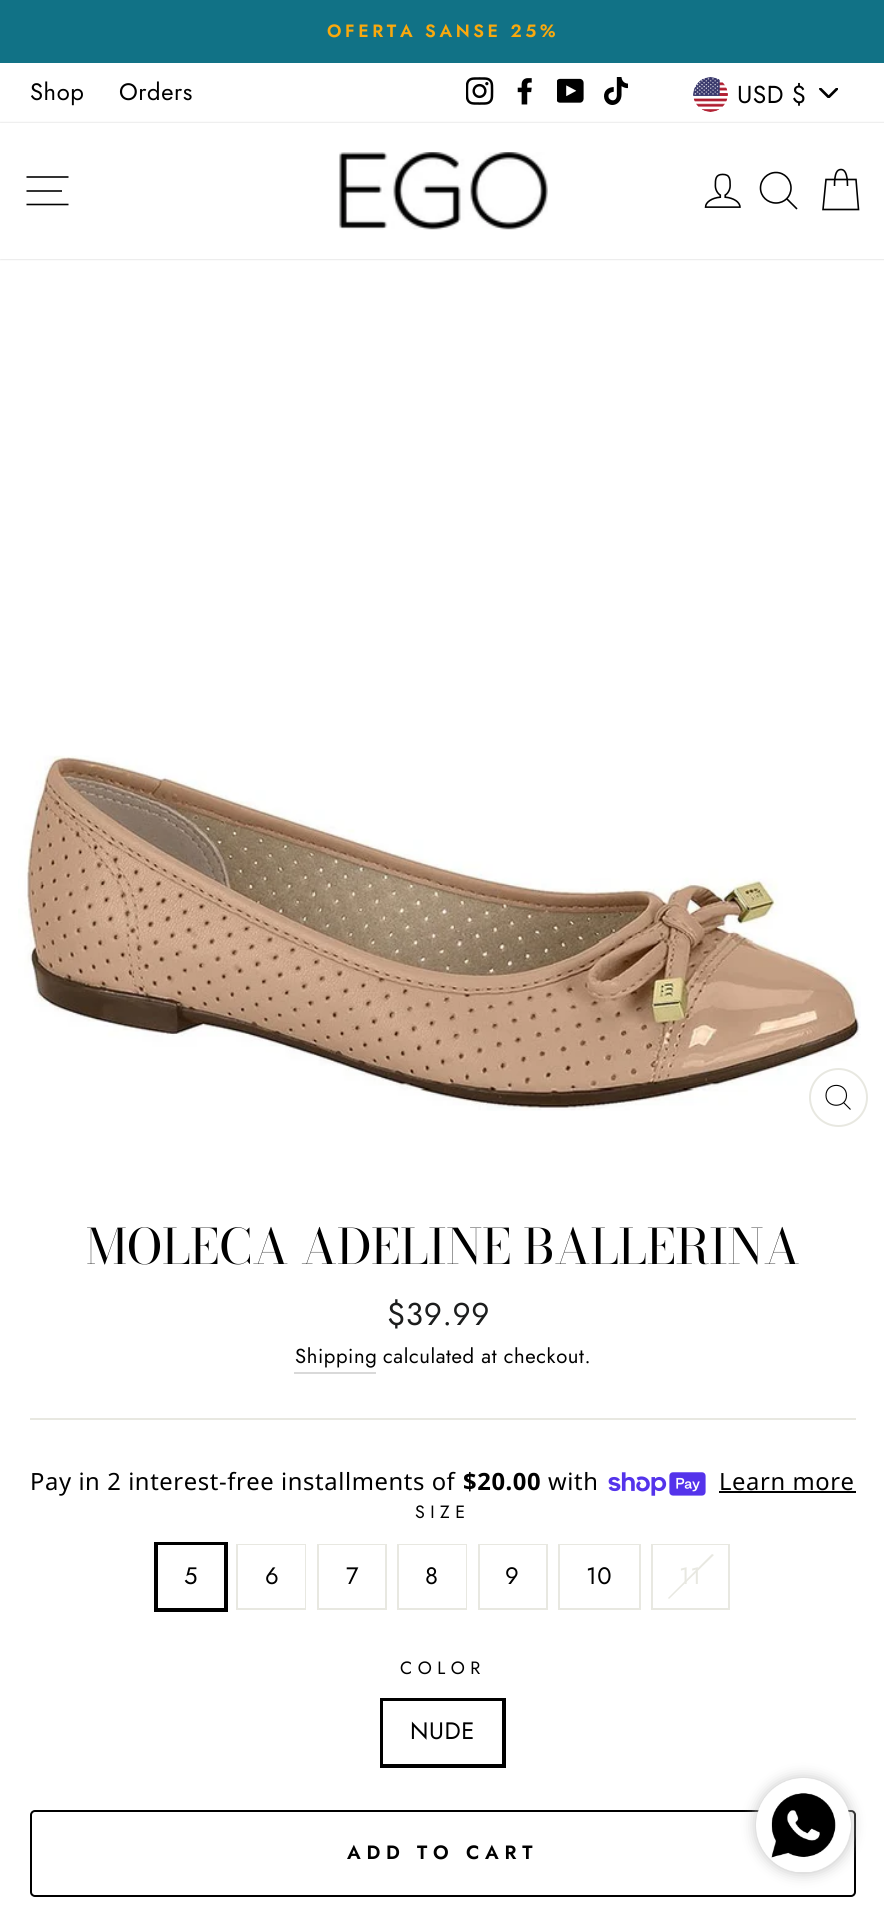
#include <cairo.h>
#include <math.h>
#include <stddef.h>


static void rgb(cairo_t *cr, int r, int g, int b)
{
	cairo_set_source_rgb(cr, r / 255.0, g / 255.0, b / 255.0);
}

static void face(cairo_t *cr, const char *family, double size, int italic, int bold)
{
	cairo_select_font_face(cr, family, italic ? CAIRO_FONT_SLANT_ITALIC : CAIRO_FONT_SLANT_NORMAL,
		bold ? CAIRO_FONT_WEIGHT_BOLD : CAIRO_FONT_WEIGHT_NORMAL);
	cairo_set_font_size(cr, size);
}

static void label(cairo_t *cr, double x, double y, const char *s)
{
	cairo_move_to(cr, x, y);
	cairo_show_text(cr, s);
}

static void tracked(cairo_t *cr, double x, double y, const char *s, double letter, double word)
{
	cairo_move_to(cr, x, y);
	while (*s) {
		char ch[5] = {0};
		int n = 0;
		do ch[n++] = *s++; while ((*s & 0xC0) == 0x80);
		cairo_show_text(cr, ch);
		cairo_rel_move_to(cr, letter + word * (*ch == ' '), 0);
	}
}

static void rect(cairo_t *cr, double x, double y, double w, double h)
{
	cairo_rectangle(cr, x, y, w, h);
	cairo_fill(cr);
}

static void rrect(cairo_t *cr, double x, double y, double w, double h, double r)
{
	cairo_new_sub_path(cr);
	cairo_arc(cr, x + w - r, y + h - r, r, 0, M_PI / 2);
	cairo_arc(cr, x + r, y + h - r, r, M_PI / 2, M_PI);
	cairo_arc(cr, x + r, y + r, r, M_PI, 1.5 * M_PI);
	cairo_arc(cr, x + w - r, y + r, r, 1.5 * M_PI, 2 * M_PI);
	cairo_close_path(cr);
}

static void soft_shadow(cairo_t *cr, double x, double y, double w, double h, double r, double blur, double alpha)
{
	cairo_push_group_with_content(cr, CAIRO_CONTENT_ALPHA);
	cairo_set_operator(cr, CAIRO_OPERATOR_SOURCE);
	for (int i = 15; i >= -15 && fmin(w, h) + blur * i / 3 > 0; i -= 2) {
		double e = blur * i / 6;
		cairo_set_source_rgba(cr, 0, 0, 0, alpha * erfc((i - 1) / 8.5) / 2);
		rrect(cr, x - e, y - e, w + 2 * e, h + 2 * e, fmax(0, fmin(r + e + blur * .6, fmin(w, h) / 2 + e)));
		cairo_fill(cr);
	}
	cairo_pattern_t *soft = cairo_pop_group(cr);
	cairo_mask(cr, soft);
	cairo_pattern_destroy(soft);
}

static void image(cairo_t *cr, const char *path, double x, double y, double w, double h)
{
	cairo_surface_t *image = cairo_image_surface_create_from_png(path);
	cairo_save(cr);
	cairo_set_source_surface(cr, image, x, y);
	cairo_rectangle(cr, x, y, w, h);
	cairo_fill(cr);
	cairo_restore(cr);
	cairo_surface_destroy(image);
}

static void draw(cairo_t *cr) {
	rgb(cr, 255, 255, 255);
	cairo_paint(cr);
	rgb(cr, 17, 114, 134);
	rect(cr, 0, 0, 884, 63);
	face(cr, "Jost SemiBold", 17.8, 0, 0);
	rgb(cr, 250, 169, 13);
	tracked(cr, 327, 37, "OFERTA SANSE 25%", 3.6, 0);
	face(cr, "Jost", 23.75, 0, 0);
	rgb(cr, 0, 0, 0);
	tracked(cr, 30, 100, "Shop", 0.6, 0);
	tracked(cr, 119, 100, "Orders", 0.6, 0);
	image(cr, "image0.png", 466, 77, 28, 28);
	image(cr, "image1.png", 517, 78, 15, 27);
	image(cr, "image2.png", 557, 78, 27, 25);
	image(cr, "image3.png", 604, 77, 24, 28);
	image(cr, "image4.png", 819, 88, 19, 10);
	image(cr, "image5.png", 693, 77, 35, 35);
	face(cr, "Jost", 24.5, 0, 0);
	tracked(cr, 737, 103, "USD $", 0.5, 0);
	cairo_save(cr);
	cairo_set_fill_rule(cr, CAIRO_FILL_RULE_EVEN_ODD);
	cairo_new_path(cr);
	cairo_move_to(cr, 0, 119);
	cairo_line_to(cr, 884, 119);
	cairo_line_to(cr, 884, 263);
	cairo_line_to(cr, 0, 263);
	cairo_close_path(cr);
	cairo_move_to(cr, 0, 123);
	cairo_line_to(cr, 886, 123);
	cairo_line_to(cr, 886, 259);
	cairo_line_to(cr, 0, 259);
	cairo_close_path(cr);
	cairo_clip(cr);
	rgb(cr, 0, 0, 0);
	soft_shadow(cr, 0, 123, 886, 136, 0, 1, 0.2);
	cairo_restore(cr);
	cairo_new_path(cr);
	cairo_move_to(cr, 26.5, 177);
	cairo_line_to(cr, 68.5, 177);
	cairo_move_to(cr, 26.5, 191);
	cairo_line_to(cr, 62, 191);
	cairo_move_to(cr, 26.5, 204.5);
	cairo_line_to(cr, 68.5, 204.5);
	cairo_set_line_width(cr, 1.6);
	cairo_stroke(cr);
	image(cr, "image6.png", 339, 152, 209, 78);
	image(cr, "image7.png", 704, 173, 37, 35);
	cairo_new_path(cr);
	cairo_move_to(cr, 791, 188);
	cairo_curve_to(cr, 791, 196.5, 784.5, 203, 776, 203);
	cairo_curve_to(cr, 767.5, 203, 760.5, 196.5, 760.5, 188);
	cairo_curve_to(cr, 760.5, 179.5, 767.5, 172.5, 776, 172.5);
	cairo_curve_to(cr, 784.5, 172.5, 791, 179.5, 791, 188);
	cairo_close_path(cr);
	cairo_move_to(cr, 797, 209);
	cairo_line_to(cr, 787, 199);
	cairo_stroke(cr);
	cairo_new_path(cr);
	cairo_move_to(cr, 834.5, 186);
	cairo_curve_to(cr, 834.5, 173, 837, 169.5, 841, 169.5);
	cairo_curve_to(cr, 844.5, 169.5, 847.5, 173, 847.5, 186);
	cairo_move_to(cr, 826, 179.5);
	cairo_line_to(cr, 856, 179.5);
	cairo_line_to(cr, 858.5, 209.5);
	cairo_line_to(cr, 823, 209.5);
	cairo_close_path(cr);
	cairo_stroke(cr);
	image(cr, "image8.png", 18, 755, 843, 356);
	cairo_arc(cr, 838.5, 1097.5, 28.5, 0, 2 * M_PI);
	rgb(cr, 232, 232, 225);
	cairo_set_line_width(cr, 2);
	cairo_stroke(cr);
	cairo_new_path(cr);
	cairo_move_to(cr, 846.5, 1095.5);
	cairo_curve_to(cr, 846.5, 1108.5, 826, 1108.5, 826, 1095.5);
	cairo_curve_to(cr, 826, 1082, 846.5, 1082, 846.5, 1095.5);
	cairo_close_path(cr);
	cairo_move_to(cr, 850.5, 1109.5);
	cairo_line_to(cr, 843.5, 1102.5);
	rgb(cr, 0, 0, 0);
	cairo_set_line_width(cr, 1.1);
	cairo_stroke(cr);
	face(cr, "Bodoni Moda", 48.5, 0, 0);
	label(cr, 86, 1264, "MOLECA ADELINE BALLERINA");
	face(cr, "Jost", 31.5, 0, 0);
	rgb(cr, 28, 29, 29);
	tracked(cr, 387, 1325, "$39.99", 0.6, 0);
	rgb(cr, 217, 217, 217);
	rect(cr, 294, 1372, 82, 2);
	face(cr, "Jost", 20.25, 0, 0);
	rgb(cr, 0, 0, 0);
	tracked(cr, 295, 1363, "Shipping", 0.6, 0);
	tracked(cr, 383, 1363, "calculated at checkout.", 0.6, 0);
	rgb(cr, 232, 232, 225);
	rect(cr, 30, 1418, 826, 2);
	face(cr, "Noto Sans", 23.75, 0, 0);
	rgb(cr, 0, 0, 0);
	tracked(cr, 30, 1490, "Pay in 2 interest-free installments of", 0.6, 0);
	face(cr, "Noto Sans", 23.75, 0, 1);
	tracked(cr, 463, 1490, "$20.00", 0.6, 0);
	face(cr, "Noto Sans", 23.75, 0, 0);
	tracked(cr, 548, 1490, "with", 0.6, 0);
	image(cr, "image9.png", 608, 1472, 98, 24);
	tracked(cr, 719, 1490, "Learn more", 0.6, 0);
	rect(cr, 719, 1491, 137, 2);
	face(cr, "Jost", 17.8, 0, 0);
	tracked(cr, 415, 1518, "SIZE", 5.5, 0);
	cairo_rectangle(cr, 156, 1544, 70, 66);
	cairo_set_line_width(cr, 4);
	cairo_stroke(cr);
	rgb(cr, 255, 255, 255);
	rect(cr, 158, 1545, 66, 1);
	face(cr, "Jost", 23.75, 0, 0);
	rgb(cr, 0, 0, 0);
	tracked(cr, 184, 1584, "5", 0.6, 0);
	cairo_rectangle(cr, 237, 1545, 68, 64);
	rgb(cr, 232, 232, 225);
	cairo_set_line_width(cr, 2);
	cairo_stroke(cr);
	rgb(cr, 255, 255, 255);
	rect(cr, 238, 1545, 67, 63);
	rgb(cr, 0, 0, 0);
	tracked(cr, 265, 1584, "6", 0.6, 0);
	cairo_rectangle(cr, 318, 1545, 68, 64);
	rgb(cr, 232, 232, 225);
	cairo_stroke(cr);
	rgb(cr, 255, 255, 255);
	rect(cr, 319, 1545, 66, 1);
	rgb(cr, 0, 0, 0);
	tracked(cr, 346, 1584, "7", 0.6, 0);
	cairo_rectangle(cr, 398, 1545, 68, 64);
	rgb(cr, 232, 232, 225);
	cairo_stroke(cr);
	rgb(cr, 255, 255, 255);
	rect(cr, 399, 1545, 67, 63);
	rgb(cr, 0, 0, 0);
	tracked(cr, 425, 1584, "8", 0.6, 0);
	cairo_rectangle(cr, 479, 1545, 68, 64);
	rgb(cr, 232, 232, 225);
	cairo_stroke(cr);
	rgb(cr, 255, 255, 255);
	rect(cr, 480, 1545, 66, 1);
	rgb(cr, 0, 0, 0);
	tracked(cr, 505, 1584, "9", 0.6, 0);
	cairo_rectangle(cr, 559, 1545, 81, 64);
	rgb(cr, 232, 232, 225);
	cairo_stroke(cr);
	rgb(cr, 255, 255, 255);
	rect(cr, 560, 1545, 79, 1);
	rgb(cr, 0, 0, 0);
	tracked(cr, 586, 1584, "10", 0.6, 0);
	cairo_rectangle(cr, 652, 1545, 77, 64);
	rgb(cr, 232, 232, 225);
	cairo_stroke(cr);
	rgb(cr, 255, 255, 255);
	rect(cr, 653, 1545, 75, 1);
	rgb(cr, 232, 232, 225);
	cairo_new_path(cr);
	cairo_move_to(cr, 712, 1554);
	cairo_line_to(cr, 714, 1555);
	cairo_line_to(cr, 669, 1599);
	cairo_line_to(cr, 668, 1598);
	cairo_close_path(cr);
	cairo_fill(cr);
	tracked(cr, 679, 1584, "11", 0.6, 0);
	face(cr, "Jost", 17.8, 0, 0);
	rgb(cr, 0, 0, 0);
	tracked(cr, 400, 1674, "COLOR", 5.5, 0);
	cairo_rectangle(cr, 382, 1700, 122, 66);
	cairo_set_line_width(cr, 4);
	cairo_stroke(cr);
	rgb(cr, 255, 255, 255);
	rect(cr, 383, 1701, 119, 63);
	face(cr, "Jost", 23.75, 0, 0);
	rgb(cr, 0, 0, 0);
	tracked(cr, 410, 1739, "NUDE", 0.6, 0);
	rrect(cr, 31, 1811, 824, 85, 4);
	cairo_set_line_width(cr, 2);
	cairo_stroke(cr);
	face(cr, "Jost SemiBold", 19.25, 0, 0);
	tracked(cr, 347, 1859, "ADD TO CART", 5.75, 0);
	rgb(cr, 194, 194, 194);
	soft_shadow(cr, 756, 1778, 95, 95, 47.5, 7, 1);
	image(cr, "image10.png", 756, 1778, 95, 94);
}

int main(void) {
	cairo_surface_t *surface = cairo_image_surface_create(CAIRO_FORMAT_RGB24, 884, 1906);
	cairo_t *cr = cairo_create(surface);
	cairo_font_options_t *options = cairo_font_options_create();
	cairo_font_options_set_hint_metrics(options, CAIRO_HINT_METRICS_OFF);
	cairo_font_options_set_hint_style(options, CAIRO_HINT_STYLE_NONE);
	cairo_set_font_options(cr, options);
	cairo_set_miter_limit(cr, 4);
	draw(cr);
	cairo_surface_write_to_png(surface, "render.png");
	cairo_font_options_destroy(options);
	cairo_destroy(cr);
	cairo_surface_destroy(surface);
	return 0;
}
